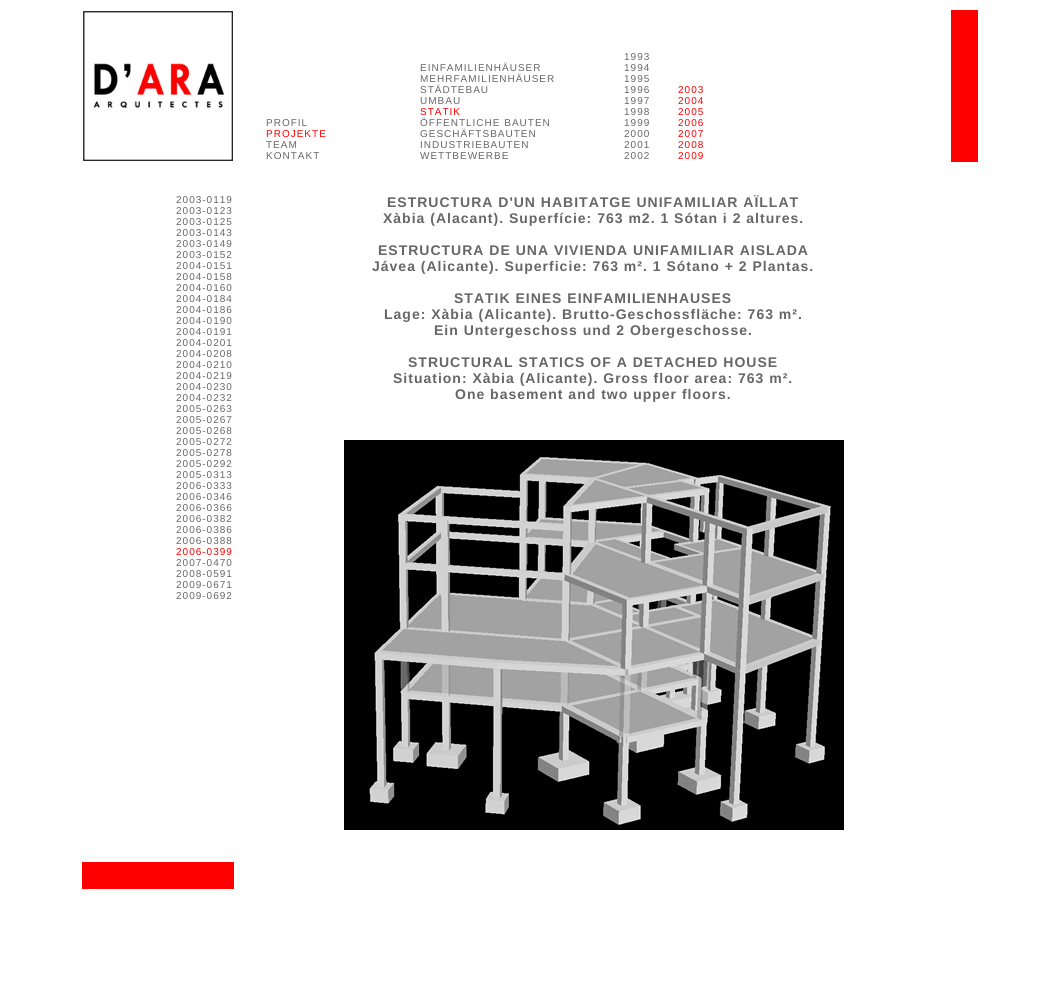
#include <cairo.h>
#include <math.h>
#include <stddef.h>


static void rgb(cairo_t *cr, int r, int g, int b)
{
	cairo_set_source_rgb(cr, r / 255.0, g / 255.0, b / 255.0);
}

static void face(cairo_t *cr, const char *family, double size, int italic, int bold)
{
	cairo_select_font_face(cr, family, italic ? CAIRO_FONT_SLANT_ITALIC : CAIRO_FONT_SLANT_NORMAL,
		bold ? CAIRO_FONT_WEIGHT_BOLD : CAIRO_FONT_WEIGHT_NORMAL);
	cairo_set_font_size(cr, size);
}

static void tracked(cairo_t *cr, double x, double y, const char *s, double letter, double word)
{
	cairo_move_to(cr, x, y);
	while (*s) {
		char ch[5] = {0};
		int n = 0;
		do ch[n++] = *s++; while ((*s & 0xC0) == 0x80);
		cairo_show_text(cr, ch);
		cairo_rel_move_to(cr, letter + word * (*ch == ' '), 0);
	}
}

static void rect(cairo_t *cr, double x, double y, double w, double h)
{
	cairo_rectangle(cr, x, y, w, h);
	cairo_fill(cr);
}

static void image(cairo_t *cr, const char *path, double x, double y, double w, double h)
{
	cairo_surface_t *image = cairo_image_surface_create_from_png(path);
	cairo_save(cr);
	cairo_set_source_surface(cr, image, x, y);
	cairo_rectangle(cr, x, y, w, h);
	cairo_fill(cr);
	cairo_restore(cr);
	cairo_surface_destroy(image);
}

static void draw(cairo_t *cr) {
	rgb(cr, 255, 255, 255);
	cairo_paint(cr);
	image(cr, "image0.png", 83, 11, 150, 150);
	face(cr, "Liberation Sans", 10, 0, 0);
	rgb(cr, 102, 102, 102);
	tracked(cr, 266, 126, "PROFIL", 1, 0);
	rgb(cr, 255, 0, 0);
	tracked(cr, 266, 137, "PROJEKTE", 1, 0);
	rgb(cr, 102, 102, 102);
	tracked(cr, 266, 148, "TEAM", 1, 0);
	tracked(cr, 266, 159, "KONTAKT", 1, 0);
	tracked(cr, 420, 71, "EINFAMILIENHÄUSER", 1, 0);
	tracked(cr, 420, 82, "MEHRFAMILIENHÄUSER", 1, 0);
	tracked(cr, 420, 93, "STÄDTEBAU", 1, 0);
	tracked(cr, 420, 104, "UMBAU", 1, 0);
	rgb(cr, 255, 0, 0);
	tracked(cr, 420, 115, "STATIK", 1, 0);
	rgb(cr, 102, 102, 102);
	tracked(cr, 420, 126, "ÖFFENTLICHE BAUTEN", 1, 0);
	tracked(cr, 420, 137, "GESCHÄFTSBAUTEN", 1, 0);
	tracked(cr, 420, 148, "INDUSTRIEBAUTEN", 1, 0);
	tracked(cr, 420, 159, "WETTBEWERBE", 1, 0);
	tracked(cr, 624, 60, "1993", 1, 0);
	tracked(cr, 624, 71, "1994", 1, 0);
	tracked(cr, 624, 82, "1995", 1, 0);
	tracked(cr, 624, 93, "1996", 1, 0);
	tracked(cr, 624, 104, "1997", 1, 0);
	tracked(cr, 624, 115, "1998", 1, 0);
	tracked(cr, 624, 126, "1999", 1, 0);
	tracked(cr, 624, 137, "2000", 1, 0);
	tracked(cr, 624, 148, "2001", 1, 0);
	tracked(cr, 624, 159, "2002", 1, 0);
	rgb(cr, 255, 0, 0);
	tracked(cr, 678, 93, "2003", 1, 0);
	tracked(cr, 678, 104, "2004", 1, 0);
	tracked(cr, 678, 115, "2005", 1, 0);
	tracked(cr, 678, 126, "2006", 1, 0);
	tracked(cr, 678, 137, "2007", 1, 0);
	tracked(cr, 678, 148, "2008", 1, 0);
	tracked(cr, 678, 159, "2009", 1, 0);
	rect(cr, 951, 10, 27, 152);
	rgb(cr, 102, 102, 102);
	tracked(cr, 176, 203, "2003-0119", 1, 0);
	tracked(cr, 176, 214, "2003-0123", 1, 0);
	tracked(cr, 176, 225, "2003-0125", 1, 0);
	tracked(cr, 176, 236, "2003-0143", 1, 0);
	tracked(cr, 176, 247, "2003-0149", 1, 0);
	tracked(cr, 176, 258, "2003-0152", 1, 0);
	tracked(cr, 176, 269, "2004-0151", 1, 0);
	tracked(cr, 176, 280, "2004-0158", 1, 0);
	tracked(cr, 176, 291, "2004-0160", 1, 0);
	tracked(cr, 176, 302, "2004-0184", 1, 0);
	tracked(cr, 176, 313, "2004-0186", 1, 0);
	tracked(cr, 176, 324, "2004-0190", 1, 0);
	tracked(cr, 176, 335, "2004-0191", 1, 0);
	tracked(cr, 176, 346, "2004-0201", 1, 0);
	tracked(cr, 176, 357, "2004-0208", 1, 0);
	tracked(cr, 176, 368, "2004-0210", 1, 0);
	tracked(cr, 176, 379, "2004-0219", 1, 0);
	tracked(cr, 176, 390, "2004-0230", 1, 0);
	tracked(cr, 176, 401, "2004-0232", 1, 0);
	tracked(cr, 176, 412, "2005-0263", 1, 0);
	tracked(cr, 176, 423, "2005-0267", 1, 0);
	tracked(cr, 176, 434, "2005-0268", 1, 0);
	tracked(cr, 176, 445, "2005-0272", 1, 0);
	tracked(cr, 176, 456, "2005-0278", 1, 0);
	tracked(cr, 176, 467, "2005-0292", 1, 0);
	tracked(cr, 176, 478, "2005-0313", 1, 0);
	tracked(cr, 176, 489, "2006-0333", 1, 0);
	tracked(cr, 176, 500, "2006-0346", 1, 0);
	tracked(cr, 176, 511, "2006-0366", 1, 0);
	tracked(cr, 176, 522, "2006-0382", 1, 0);
	tracked(cr, 176, 533, "2006-0386", 1, 0);
	tracked(cr, 176, 544, "2006-0388", 1, 0);
	rgb(cr, 255, 0, 0);
	tracked(cr, 176, 555, "2006-0399", 1, 0);
	rgb(cr, 102, 102, 102);
	tracked(cr, 176, 566, "2007-0470", 1, 0);
	tracked(cr, 176, 577, "2008-0591", 1, 0);
	tracked(cr, 176, 588, "2009-0671", 1, 0);
	tracked(cr, 176, 599, "2009-0692", 1, 0);
	face(cr, "Liberation Sans", 14, 0, 1);
	tracked(cr, 387, 207, "ESTRUCTURA D'UN HABITATGE UNIFAMILIAR AÏLLAT", 1, 0);
	tracked(cr, 383, 223, "Xàbia (Alacant). Superfície: 763 m2. 1 Sótan i 2 altures.", 1, 0);
	tracked(cr, 378, 255, "ESTRUCTURA DE UNA VIVIENDA UNIFAMILIAR AISLADA", 1, 0);
	tracked(cr, 372, 271, "Jávea (Alicante). Superficie: 763 m². 1 Sótano + 2 Plantas.", 1, 0);
	tracked(cr, 454, 303, "STATIK EINES EINFAMILIENHAUSES", 1, 0);
	tracked(cr, 384, 319, "Lage: Xàbia (Alicante). Brutto-Geschossfläche: 763 m².", 1, 0);
	tracked(cr, 434, 335, "Ein Untergeschoss und 2 Obergeschosse.", 1, 0);
	tracked(cr, 408, 367, "STRUCTURAL STATICS OF A DETACHED HOUSE", 1, 0);
	tracked(cr, 393, 383, "Situation: Xàbia (Alicante). Gross floor area: 763 m².", 1, 0);
	tracked(cr, 455, 399, "One basement and two upper floors.", 1, 0);
	image(cr, "image1.png", 344, 440, 500, 390);
	rgb(cr, 255, 0, 0);
	rect(cr, 82, 862, 152, 27);
}

int main(void) {
	cairo_surface_t *surface = cairo_image_surface_create(CAIRO_FORMAT_RGB24, 1059, 989);
	cairo_t *cr = cairo_create(surface);
	cairo_font_options_t *options = cairo_font_options_create();
	cairo_font_options_set_hint_metrics(options, CAIRO_HINT_METRICS_OFF);
	cairo_font_options_set_hint_style(options, CAIRO_HINT_STYLE_NONE);
	cairo_set_font_options(cr, options);
	cairo_set_miter_limit(cr, 4);
	draw(cr);
	cairo_surface_write_to_png(surface, "render.png");
	cairo_font_options_destroy(options);
	cairo_destroy(cr);
	cairo_surface_destroy(surface);
	return 0;
}
